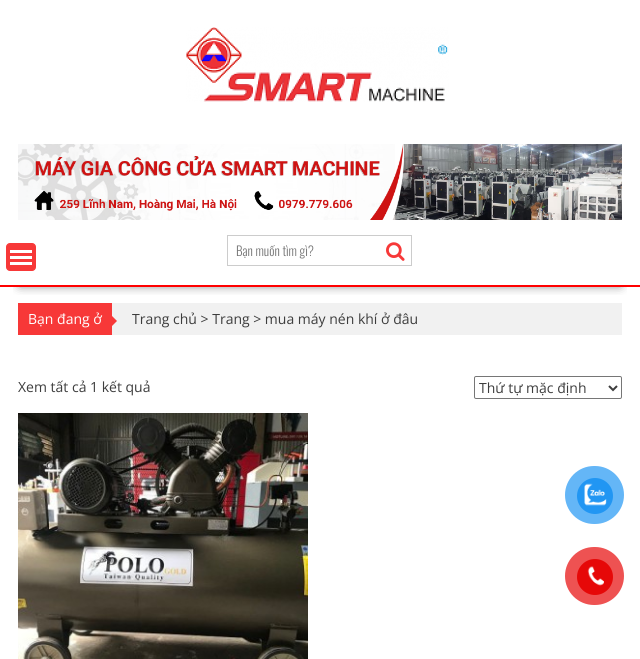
#include <cairo.h>
#include <math.h>
#include <stddef.h>


static void rgb(cairo_t *cr, int r, int g, int b)
{
	cairo_set_source_rgb(cr, r / 255.0, g / 255.0, b / 255.0);
}

static void face(cairo_t *cr, const char *family, double size, int italic, int bold)
{
	cairo_select_font_face(cr, family, italic ? CAIRO_FONT_SLANT_ITALIC : CAIRO_FONT_SLANT_NORMAL,
		bold ? CAIRO_FONT_WEIGHT_BOLD : CAIRO_FONT_WEIGHT_NORMAL);
	cairo_set_font_size(cr, size);
}

static void label(cairo_t *cr, double x, double y, const char *s)
{
	cairo_move_to(cr, x, y);
	cairo_show_text(cr, s);
}

static void rect(cairo_t *cr, double x, double y, double w, double h)
{
	cairo_rectangle(cr, x, y, w, h);
	cairo_fill(cr);
}

static void rrect(cairo_t *cr, double x, double y, double w, double h, double r)
{
	cairo_new_sub_path(cr);
	cairo_arc(cr, x + w - r, y + h - r, r, 0, M_PI / 2);
	cairo_arc(cr, x + r, y + h - r, r, M_PI / 2, M_PI);
	cairo_arc(cr, x + r, y + r, r, M_PI, 1.5 * M_PI);
	cairo_arc(cr, x + w - r, y + r, r, 1.5 * M_PI, 2 * M_PI);
	cairo_close_path(cr);
}

static void soft_shadow(cairo_t *cr, double x, double y, double w, double h, double r, double blur, double alpha)
{
	cairo_push_group_with_content(cr, CAIRO_CONTENT_ALPHA);
	cairo_set_operator(cr, CAIRO_OPERATOR_SOURCE);
	for (int i = 15; i >= -15 && fmin(w, h) + blur * i / 3 > 0; i -= 2) {
		double e = blur * i / 6;
		cairo_set_source_rgba(cr, 0, 0, 0, alpha * erfc((i - 1) / 8.5) / 2);
		rrect(cr, x - e, y - e, w + 2 * e, h + 2 * e, fmax(0, fmin(r + e + blur * .6, fmin(w, h) / 2 + e)));
		cairo_fill(cr);
	}
	cairo_pattern_t *soft = cairo_pop_group(cr);
	cairo_mask(cr, soft);
	cairo_pattern_destroy(soft);
}

static void image(cairo_t *cr, const char *path, double x, double y, double w, double h)
{
	cairo_surface_t *image = cairo_image_surface_create_from_png(path);
	cairo_save(cr);
	cairo_set_source_surface(cr, image, x, y);
	cairo_rectangle(cr, x, y, w, h);
	cairo_fill(cr);
	cairo_restore(cr);
	cairo_surface_destroy(image);
}

static void draw(cairo_t *cr) {
	rgb(cr, 255, 255, 255);
	cairo_paint(cr);
	image(cr, "image0.png", 186, 27, 263, 75);
	image(cr, "image1.png", 18, 144, 604, 76);
	cairo_save(cr);
	cairo_rectangle(cr, 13, 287, 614, 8);
	cairo_clip(cr);
	rgb(cr, 0, 0, 0);
	soft_shadow(cr, 20, 272, 600, 12, 0, 5.5, 0.75);
	cairo_restore(cr);
	rgb(cr, 255, 0, 0);
	rect(cr, 0, 285, 640, 2);
	rgb(cr, 247, 56, 56);
	rrect(cr, 6.5, 243.5, 29, 27, 3.5);
	cairo_fill_preserve(cr);
	cairo_set_line_width(cr, 1);
	cairo_stroke(cr);
	rgb(cr, 255, 255, 255);
	rect(cr, 10, 262, 22, 3);
	rect(cr, 10, 256, 22, 3);
	rect(cr, 10, 250, 22, 3);
	cairo_rectangle(cr, 227.5, 235.5, 184, 30);
	rgb(cr, 204, 204, 204);
	cairo_stroke(cr);
	face(cr, "Oswald Light", 13, 0, 0);
	rgb(cr, 117, 117, 117);
	label(cr, 236, 256, "Bạn muốn tìm gì?");
	image(cr, "image2.png", 386, 242, 19, 19);
	rgb(cr, 241, 241, 241);
	rect(cr, 112, 303, 510, 32);
	rgb(cr, 247, 56, 56);
	rect(cr, 18, 303, 94, 32);
	face(cr, "Open Sans", 14, 0, 0);
	rgb(cr, 255, 255, 255);
	label(cr, 28, 324, "Bạn đang ở");
	rgb(cr, 247, 56, 56);
	cairo_new_path(cr);
	cairo_move_to(cr, 112, 326);
	cairo_line_to(cr, 112, 316);
	cairo_line_to(cr, 117, 321);
	cairo_close_path(cr);
	cairo_fill(cr);
	rgb(cr, 61, 61, 61);
	label(cr, 132, 324, "Trang chủ > Trang > mua máy nén khí ở đâu");
	label(cr, 18, 392, "Xem tất cả 1 kết quả");
	rrect(cr, 474.5, 376.5, 147, 22, 1.5);
	rgb(cr, 118, 118, 118);
	cairo_stroke(cr);
	cairo_new_path(cr);
	cairo_move_to(cr, 609, 386);
	cairo_line_to(cr, 613, 390);
	cairo_line_to(cr, 617, 386);
	rgb(cr, 61, 61, 61);
	cairo_set_line_width(cr, 2);
	cairo_stroke(cr);
	label(cr, 479, 393, "Thứ tự mặc định");
	image(cr, "image3.png", 18, 413, 290, 246);
	rgb(cr, 100, 182, 247);
	rrect(cr, 565, 466, 59, 58, 29);
	cairo_fill(cr);
	rgb(cr, 33, 150, 243);
	cairo_arc(cr, 595, 496, 18, 0, 2 * M_PI);
	cairo_fill(cr);
	image(cr, "image4.png", 584, 483, 23, 23);
	rgb(cr, 238, 82, 82);
	rrect(cr, 565, 547, 59, 58, 29);
	cairo_fill(cr);
	rgb(cr, 230, 8, 8);
	cairo_arc(cr, 595, 577, 18, 0, 2 * M_PI);
	cairo_fill(cr);
	image(cr, "image5.png", 587, 566, 17, 20);
}

int main(void) {
	cairo_surface_t *surface = cairo_image_surface_create(CAIRO_FORMAT_RGB24, 640, 659);
	cairo_t *cr = cairo_create(surface);
	cairo_font_options_t *options = cairo_font_options_create();
	cairo_font_options_set_hint_metrics(options, CAIRO_HINT_METRICS_OFF);
	cairo_font_options_set_hint_style(options, CAIRO_HINT_STYLE_NONE);
	cairo_set_font_options(cr, options);
	cairo_set_miter_limit(cr, 4);
	draw(cr);
	cairo_surface_write_to_png(surface, "render.png");
	cairo_font_options_destroy(options);
	cairo_destroy(cr);
	cairo_surface_destroy(surface);
	return 0;
}
